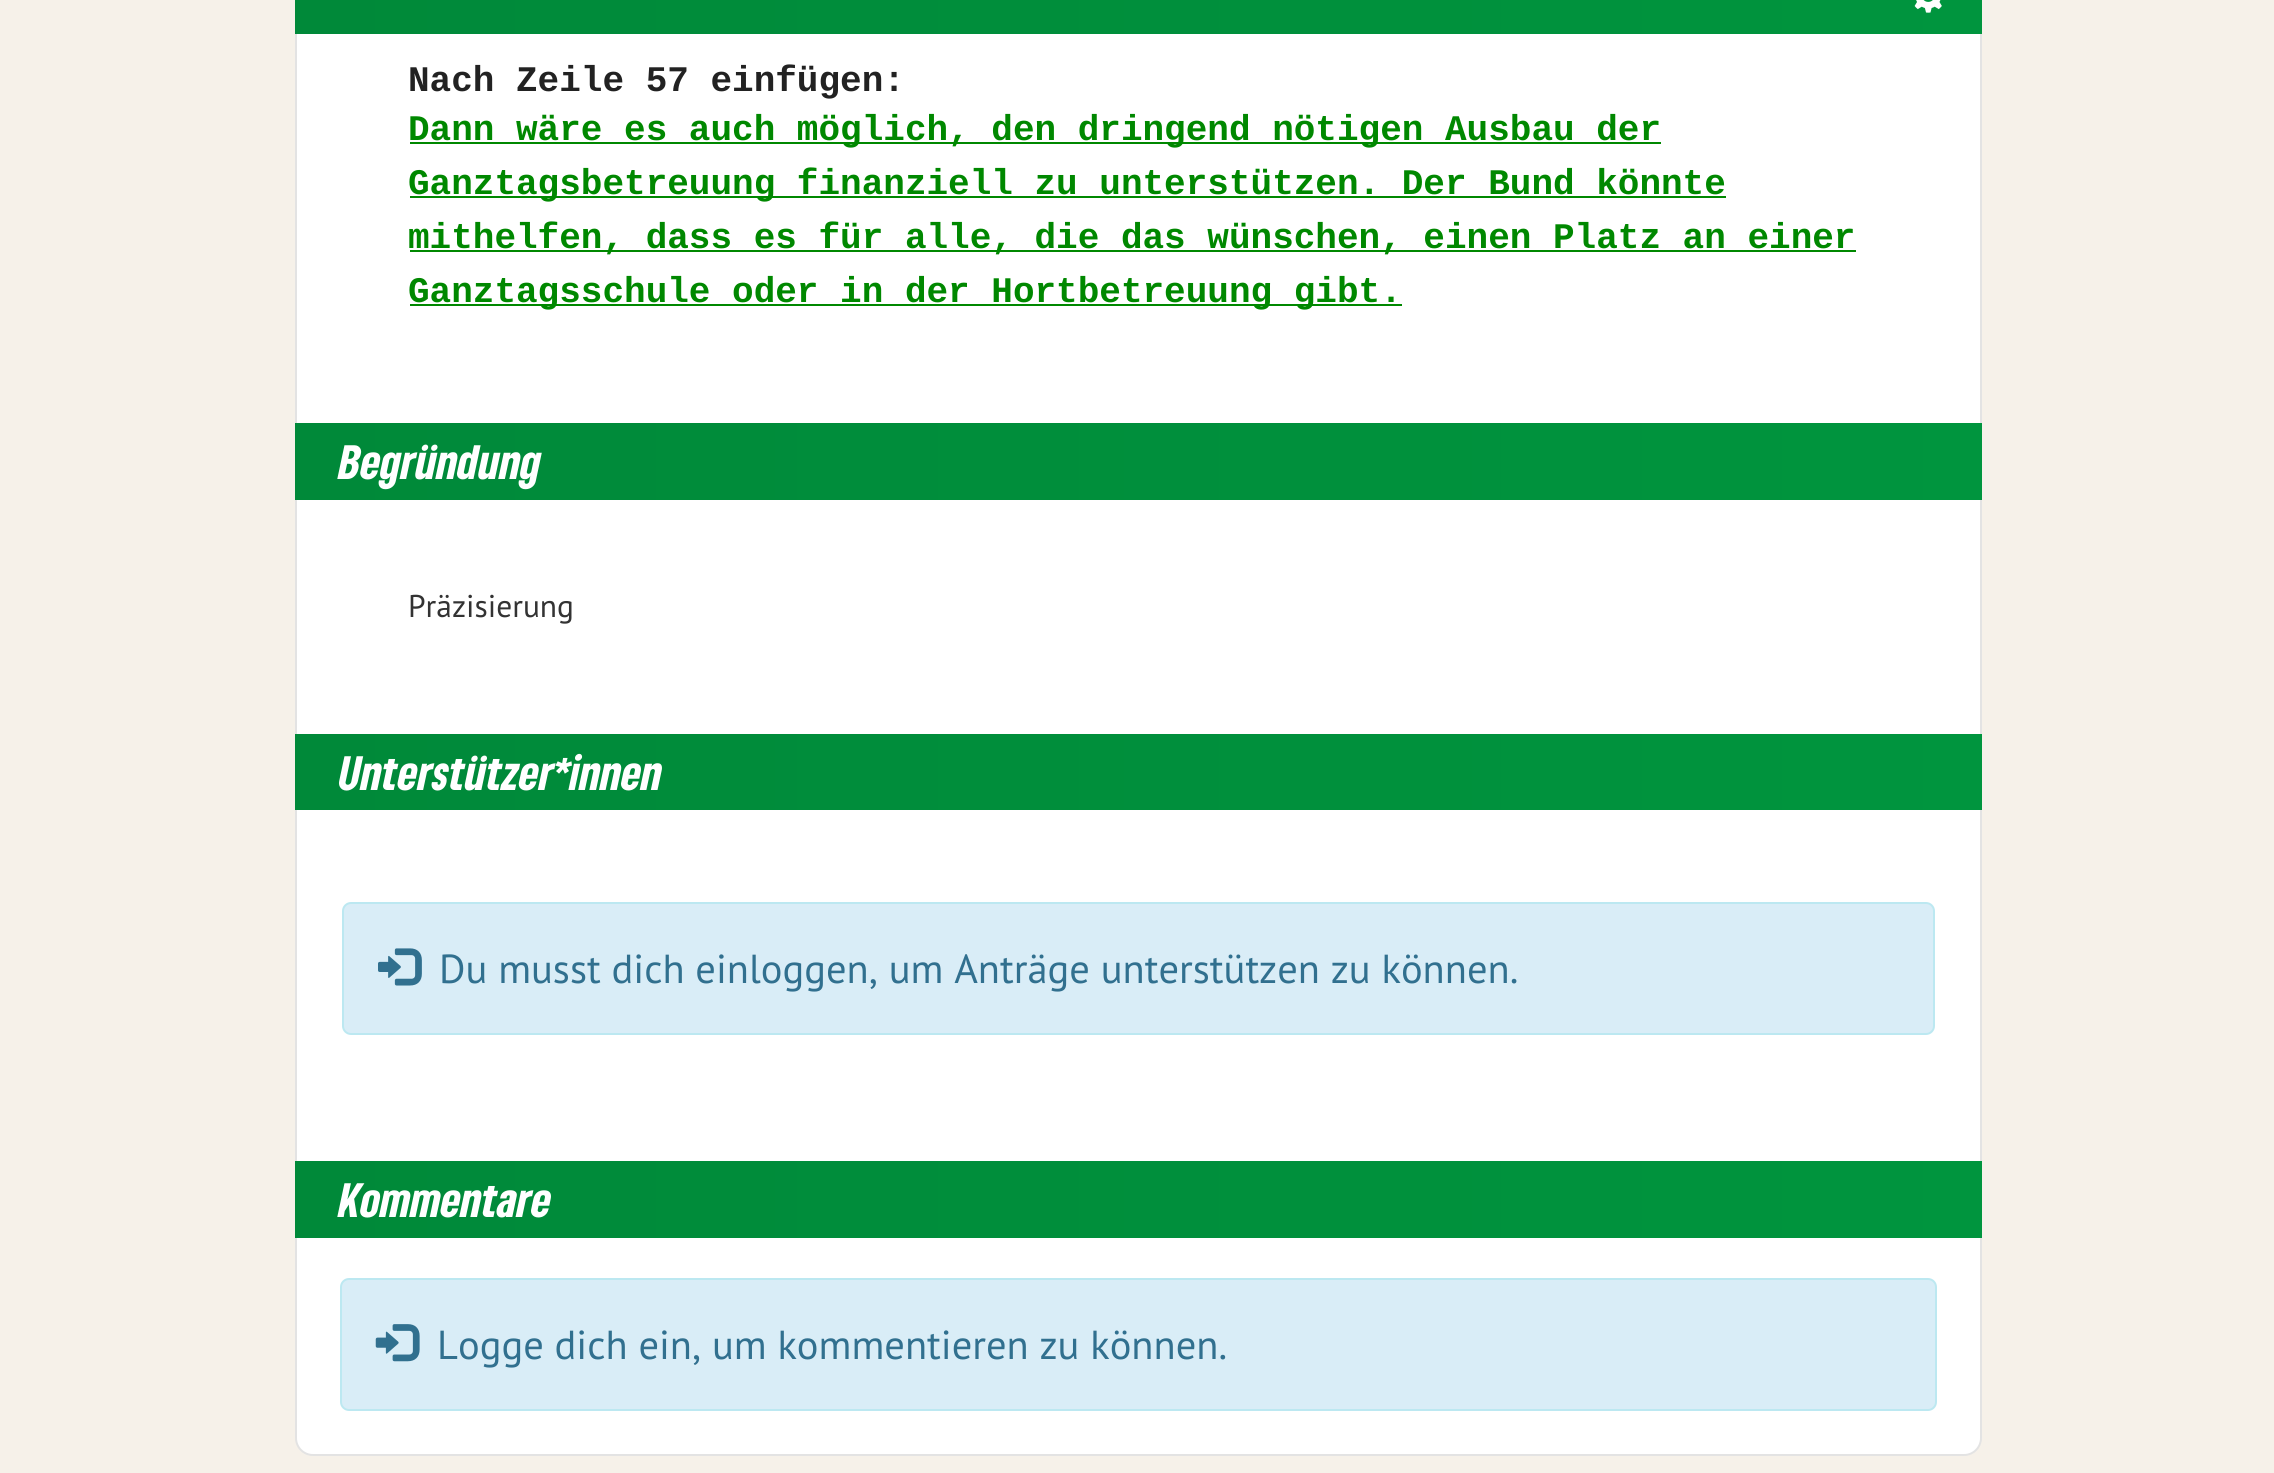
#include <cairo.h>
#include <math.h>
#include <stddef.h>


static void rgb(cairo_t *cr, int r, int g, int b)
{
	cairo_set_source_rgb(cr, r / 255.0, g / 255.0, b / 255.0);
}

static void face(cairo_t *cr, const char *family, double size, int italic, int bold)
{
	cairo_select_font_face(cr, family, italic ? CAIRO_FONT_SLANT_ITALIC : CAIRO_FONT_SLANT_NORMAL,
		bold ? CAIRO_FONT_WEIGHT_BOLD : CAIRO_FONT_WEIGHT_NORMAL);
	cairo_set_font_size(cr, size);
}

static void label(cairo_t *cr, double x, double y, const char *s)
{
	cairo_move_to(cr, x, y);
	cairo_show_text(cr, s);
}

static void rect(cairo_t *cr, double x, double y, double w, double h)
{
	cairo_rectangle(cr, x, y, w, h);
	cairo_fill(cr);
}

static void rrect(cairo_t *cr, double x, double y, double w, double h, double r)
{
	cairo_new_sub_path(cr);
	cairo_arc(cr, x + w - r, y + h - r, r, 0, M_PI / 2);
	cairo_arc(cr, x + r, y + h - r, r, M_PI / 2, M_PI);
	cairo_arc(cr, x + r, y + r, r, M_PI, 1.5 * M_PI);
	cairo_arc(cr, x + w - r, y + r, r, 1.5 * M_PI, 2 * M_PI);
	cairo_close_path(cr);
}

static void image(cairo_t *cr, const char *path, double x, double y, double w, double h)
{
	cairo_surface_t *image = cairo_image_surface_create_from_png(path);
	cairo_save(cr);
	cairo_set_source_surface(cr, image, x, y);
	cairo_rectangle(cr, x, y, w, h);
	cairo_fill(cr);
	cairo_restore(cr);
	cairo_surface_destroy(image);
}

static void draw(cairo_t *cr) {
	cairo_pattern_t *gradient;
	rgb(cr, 246, 241, 233);
	cairo_paint(cr);
	rgb(cr, 255, 255, 255);
	rrect(cr, 296, -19, 1685, 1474, 17);
	cairo_fill_preserve(cr);
	rgb(cr, 227, 227, 227);
	cairo_stroke(cr);
	gradient = cairo_pattern_create_linear(295, -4.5, 1982, -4.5);
	cairo_pattern_add_color_stop_rgba(gradient, 0, 0, 0.537, 0.224, 1);
	cairo_pattern_add_color_stop_rgba(gradient, 1, 0, 0.584, 0.243, 1);
	cairo_set_source(cr, gradient);
	cairo_pattern_destroy(gradient);
	rect(cr, 295, 0, 1687, 34);
	image(cr, "image0.png", 1914, 0, 28, 13);
	face(cr, "Liberation Mono", 36, 0, 1);
	rgb(cr, 34, 34, 34);
	label(cr, 408, 91, "Nach Zeile 57 einfügen:");
	rgb(cr, 0, 136, 0);
	rect(cr, 410, 142, 1251, 2);
	label(cr, 408, 140, "Dann wäre es auch möglich, den dringend nötigen Ausbau der");
	rect(cr, 410, 196, 1316, 2);
	label(cr, 408, 194, "Ganztagsbetreuung finanziell zu unterstützen. Der Bund könnte");
	rect(cr, 410, 250, 1446, 2);
	label(cr, 408, 248, "mithelfen, dass es für alle, die das wünschen, einen Platz an einer");
	rect(cr, 410, 304, 992, 2);
	label(cr, 408, 302, "Ganztagsschule oder in der Hortbetreuung gibt.");
	gradient = cairo_pattern_create_linear(295, 461, 1982, 461);
	cairo_pattern_add_color_stop_rgba(gradient, 0, 0, 0.537, 0.224, 1);
	cairo_pattern_add_color_stop_rgba(gradient, 1, 0, 0.584, 0.243, 1);
	cairo_set_source(cr, gradient);
	cairo_pattern_destroy(gradient);
	rect(cr, 295, 423, 1687, 77);
	face(cr, "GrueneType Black", 45, 1, 0);
	rgb(cr, 255, 255, 255);
	label(cr, 339, 479, "Begründung");
	face(cr, "PT Sans", 31.5, 0, 0);
	rgb(cr, 51, 51, 51);
	label(cr, 408, 617, "Präzisierung");
	gradient = cairo_pattern_create_linear(295, 772, 1982, 772);
	cairo_pattern_add_color_stop_rgba(gradient, 0, 0, 0.537, 0.224, 1);
	cairo_pattern_add_color_stop_rgba(gradient, 1, 0, 0.584, 0.243, 1);
	cairo_set_source(cr, gradient);
	cairo_pattern_destroy(gradient);
	rect(cr, 295, 734, 1687, 76);
	face(cr, "GrueneType Black", 45, 1, 0);
	rgb(cr, 255, 255, 255);
	label(cr, 339, 790, "Unterstützer*innen");
	rgb(cr, 217, 237, 247);
	rrect(cr, 343, 903, 1591, 131, 8);
	cairo_fill_preserve(cr);
	rgb(cr, 188, 232, 241);
	cairo_stroke(cr);
	image(cr, "image1.png", 378, 948, 44, 38);
	face(cr, "PT Sans", 40.5, 0, 0);
	rgb(cr, 49, 112, 143);
	label(cr, 439, 983, "Du musst dich einloggen, um Anträge unterstützen zu können.");
	gradient = cairo_pattern_create_linear(295, 1199, 1982, 1199);
	cairo_pattern_add_color_stop_rgba(gradient, 0, 0, 0.537, 0.224, 1);
	cairo_pattern_add_color_stop_rgba(gradient, 1, 0, 0.584, 0.243, 1);
	cairo_set_source(cr, gradient);
	cairo_pattern_destroy(gradient);
	rect(cr, 295, 1161, 1687, 77);
	face(cr, "GrueneType Black", 45, 1, 0);
	rgb(cr, 255, 255, 255);
	label(cr, 339, 1217, "Kommentare");
	rgb(cr, 217, 237, 247);
	rrect(cr, 341, 1279, 1595, 131, 8);
	cairo_fill_preserve(cr);
	rgb(cr, 188, 232, 241);
	cairo_stroke(cr);
	image(cr, "image2.png", 375, 1324, 45, 38);
	face(cr, "PT Sans", 40.5, 0, 0);
	rgb(cr, 49, 112, 143);
	label(cr, 437, 1359, "Logge dich ein, um kommentieren zu können.");
}

int main(void) {
	cairo_surface_t *surface = cairo_image_surface_create(CAIRO_FORMAT_RGB24, 2274, 1473);
	cairo_t *cr = cairo_create(surface);
	cairo_font_options_t *options = cairo_font_options_create();
	cairo_font_options_set_hint_metrics(options, CAIRO_HINT_METRICS_OFF);
	cairo_font_options_set_hint_style(options, CAIRO_HINT_STYLE_NONE);
	cairo_set_font_options(cr, options);
	cairo_set_miter_limit(cr, 4);
	draw(cr);
	cairo_surface_write_to_png(surface, "render.png");
	cairo_font_options_destroy(options);
	cairo_destroy(cr);
	cairo_surface_destroy(surface);
	return 0;
}
